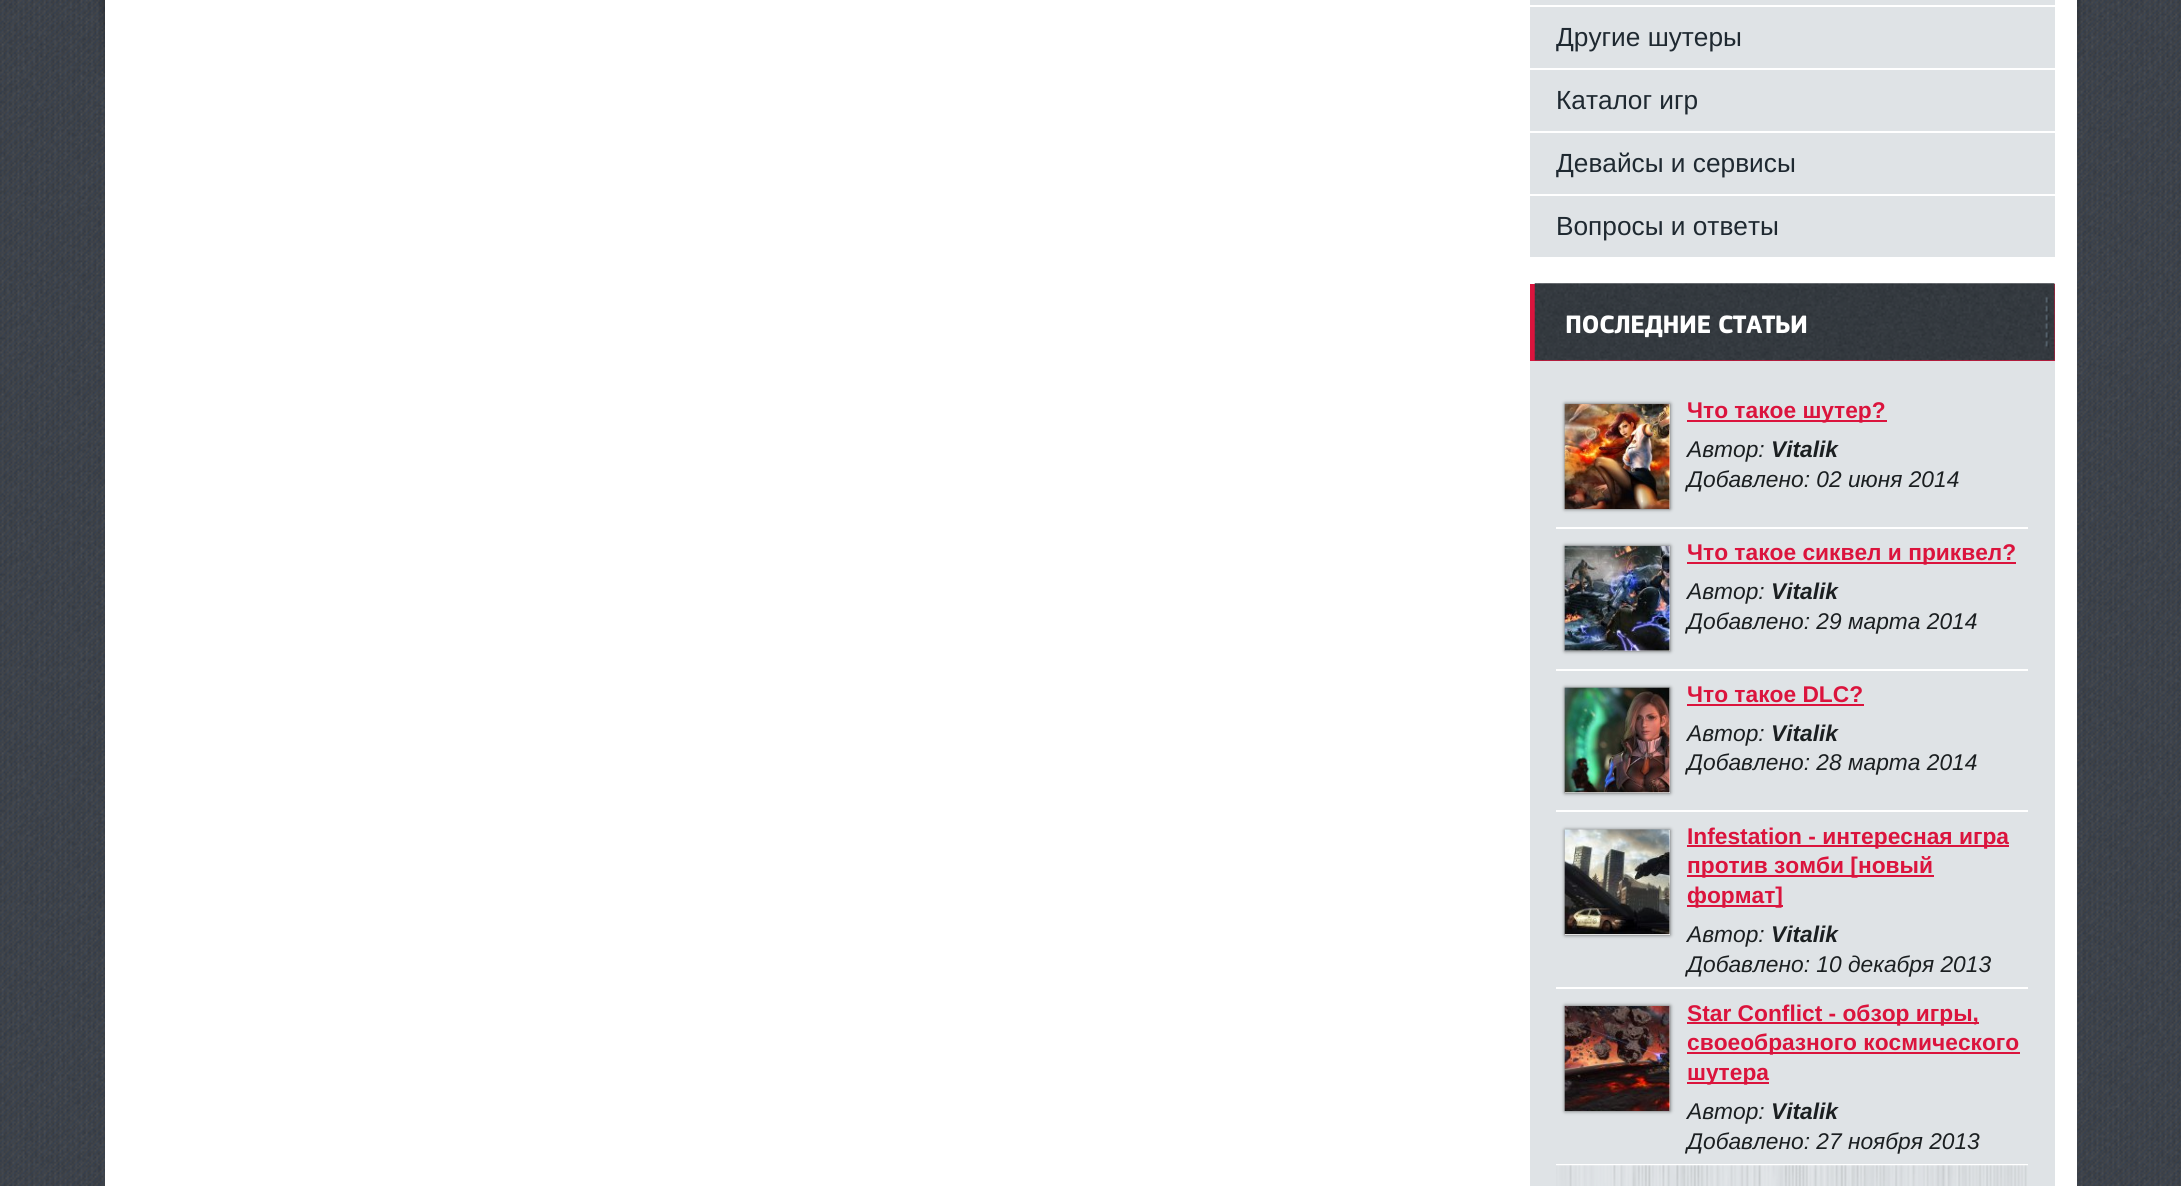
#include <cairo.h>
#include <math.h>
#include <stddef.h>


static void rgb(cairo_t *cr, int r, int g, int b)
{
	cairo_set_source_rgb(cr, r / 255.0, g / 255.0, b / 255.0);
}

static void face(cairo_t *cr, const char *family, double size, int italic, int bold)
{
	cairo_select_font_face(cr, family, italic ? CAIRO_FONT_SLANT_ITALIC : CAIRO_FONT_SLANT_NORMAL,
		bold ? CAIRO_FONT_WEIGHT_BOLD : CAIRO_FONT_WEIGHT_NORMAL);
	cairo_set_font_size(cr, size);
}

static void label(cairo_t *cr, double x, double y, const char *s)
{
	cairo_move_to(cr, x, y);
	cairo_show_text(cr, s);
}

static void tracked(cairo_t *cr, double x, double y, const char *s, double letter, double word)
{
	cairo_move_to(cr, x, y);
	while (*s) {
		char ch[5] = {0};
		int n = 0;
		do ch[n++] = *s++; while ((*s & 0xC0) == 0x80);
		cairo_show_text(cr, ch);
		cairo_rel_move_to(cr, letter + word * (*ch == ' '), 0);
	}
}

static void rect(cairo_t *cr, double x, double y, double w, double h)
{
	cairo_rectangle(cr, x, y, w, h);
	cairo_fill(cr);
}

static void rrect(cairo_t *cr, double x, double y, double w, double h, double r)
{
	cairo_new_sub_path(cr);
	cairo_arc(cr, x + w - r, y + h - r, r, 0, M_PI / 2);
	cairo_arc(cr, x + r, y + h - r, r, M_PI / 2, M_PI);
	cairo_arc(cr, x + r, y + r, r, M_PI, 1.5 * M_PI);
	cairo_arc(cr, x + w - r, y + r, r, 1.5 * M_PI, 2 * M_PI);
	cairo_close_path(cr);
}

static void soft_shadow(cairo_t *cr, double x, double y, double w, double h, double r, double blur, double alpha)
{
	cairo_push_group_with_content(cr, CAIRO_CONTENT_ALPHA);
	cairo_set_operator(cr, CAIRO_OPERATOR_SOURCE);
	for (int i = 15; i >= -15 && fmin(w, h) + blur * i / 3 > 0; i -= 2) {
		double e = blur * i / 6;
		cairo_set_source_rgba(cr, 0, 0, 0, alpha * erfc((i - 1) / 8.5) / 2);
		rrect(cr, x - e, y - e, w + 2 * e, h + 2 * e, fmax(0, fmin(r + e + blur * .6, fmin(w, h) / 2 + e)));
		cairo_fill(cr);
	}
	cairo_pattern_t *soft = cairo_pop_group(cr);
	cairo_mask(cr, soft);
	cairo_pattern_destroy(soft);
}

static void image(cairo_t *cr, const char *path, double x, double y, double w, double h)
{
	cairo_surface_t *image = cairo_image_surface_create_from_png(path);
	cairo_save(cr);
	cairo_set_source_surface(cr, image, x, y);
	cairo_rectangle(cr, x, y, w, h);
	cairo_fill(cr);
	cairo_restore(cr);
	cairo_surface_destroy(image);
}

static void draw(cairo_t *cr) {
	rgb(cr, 255, 255, 255);
	cairo_paint(cr);
	image(cr, "image0.png", 0, 0, 2181, 1186);
	image(cr, "image1.png", 99, 0, 6, 78);
	image(cr, "image2.png", 2077, 0, 5, 78);
	rgb(cr, 255, 255, 255);
	rect(cr, 105, 0, 1972, 1186);
	rgb(cr, 223, 227, 230);
	rect(cr, 1530, 0, 525, 257);
	rgb(cr, 255, 255, 255);
	rect(cr, 1530, 5, 525, 2);
	rect(cr, 1530, 68, 525, 2);
	face(cr, "Liberation Sans", 26.25, 0, 0);
	rgb(cr, 31, 41, 49);
	label(cr, 1556, 46, "Другие шутеры");
	rgb(cr, 255, 255, 255);
	rect(cr, 1530, 131, 525, 2);
	rgb(cr, 31, 41, 49);
	label(cr, 1556, 109, "Каталог игр");
	rgb(cr, 255, 255, 255);
	rect(cr, 1530, 194, 525, 2);
	rgb(cr, 31, 41, 49);
	label(cr, 1556, 172, "Девайсы и сервисы");
	label(cr, 1556, 235, "Вопросы и ответы");
	rgb(cr, 219, 20, 61);
	rect(cr, 1530, 284, 525, 77);
	image(cr, "image3.png", 1534, 283, 521, 78);
	face(cr, "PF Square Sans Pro", 26.25, 0, 1);
	rgb(cr, 255, 255, 255);
	tracked(cr, 1565, 333, "ПОСЛЕДНИЕ СТАТЬИ", -0.5, 0);
	rgb(cr, 223, 227, 230);
	rect(cr, 1530, 361, 525, 825);
	rgb(cr, 255, 255, 255);
	rect(cr, 1556, 527, 472, 2);
	rgb(cr, 0, 0, 0);
	soft_shadow(cr, 1565, 404, 105, 105, 0, 2, 0.61);
	rgb(cr, 241, 241, 241);
	rect(cr, 1669, 404, 1, 105);
	image(cr, "image4.png", 1564, 404, 106, 105);
	rgb(cr, 219, 20, 61);
	rect(cr, 1687, 420, 200, 2);
	face(cr, "Liberation Sans", 22.75, 0, 1);
	label(cr, 1687, 418, "Что такое шутер?");
	face(cr, "Liberation Sans", 22.75, 1, 0);
	rgb(cr, 27, 31, 33);
	label(cr, 1687, 457, "Автор:");
	face(cr, "Liberation Sans", 22.75, 1, 1);
	label(cr, 1771, 457, "Vitalik");
	face(cr, "Liberation Sans", 22.75, 1, 0);
	label(cr, 1687, 487, "Добавлено: 02 июня 2014");
	rgb(cr, 255, 255, 255);
	rect(cr, 1556, 669, 472, 2);
	rgb(cr, 0, 0, 0);
	soft_shadow(cr, 1565, 546, 105, 105, 0, 2, 0.61);
	rgb(cr, 241, 241, 241);
	rect(cr, 1565, 546, 105, 105);
	image(cr, "image5.png", 1564, 545, 106, 106);
	rgb(cr, 219, 20, 61);
	rect(cr, 1687, 562, 329, 2);
	face(cr, "Liberation Sans", 22.75, 0, 1);
	label(cr, 1687, 560, "Что такое сиквел и приквел?");
	face(cr, "Liberation Sans", 22.75, 1, 0);
	rgb(cr, 27, 31, 33);
	label(cr, 1687, 599, "Автор:");
	face(cr, "Liberation Sans", 22.75, 1, 1);
	label(cr, 1771, 599, "Vitalik");
	face(cr, "Liberation Sans", 22.75, 1, 0);
	label(cr, 1687, 629, "Добавлено: 29 марта 2014");
	rgb(cr, 255, 255, 255);
	rect(cr, 1556, 810, 472, 2);
	rgb(cr, 0, 0, 0);
	soft_shadow(cr, 1565, 688, 105, 105, 0, 2, 0.61);
	rgb(cr, 241, 241, 241);
	rect(cr, 1565, 688, 105, 105);
	image(cr, "image6.png", 1564, 687, 106, 106);
	face(cr, "Liberation Sans", 22.75, 0, 1);
	rgb(cr, 219, 20, 61);
	label(cr, 1687, 702, "Что такое DLC?");
	rect(cr, 1687, 704, 177, 2);
	face(cr, "Liberation Sans", 22.75, 1, 0);
	rgb(cr, 27, 31, 33);
	label(cr, 1687, 741, "Автор:");
	face(cr, "Liberation Sans", 22.75, 1, 1);
	label(cr, 1771, 741, "Vitalik");
	face(cr, "Liberation Sans", 22.75, 1, 0);
	label(cr, 1687, 770, "Добавлено: 28 марта 2014");
	rgb(cr, 255, 255, 255);
	rect(cr, 1556, 987, 472, 2);
	rgb(cr, 0, 0, 0);
	soft_shadow(cr, 1565, 830, 105, 105, 0, 2, 0.61);
	rgb(cr, 241, 241, 241);
	rect(cr, 1565, 830, 105, 105);
	image(cr, "image7.png", 1564, 829, 106, 106);
	rgb(cr, 219, 20, 61);
	rect(cr, 1687, 845, 322, 2);
	face(cr, "Liberation Sans", 22.75, 0, 1);
	label(cr, 1687, 844, "Infestation - интересная игра");
	rect(cr, 1687, 875, 247, 2);
	label(cr, 1687, 873, "против зомби [новый");
	rect(cr, 1687, 905, 96, 2);
	label(cr, 1687, 903, "формат]");
	face(cr, "Liberation Sans", 22.75, 1, 0);
	rgb(cr, 27, 31, 33);
	label(cr, 1687, 942, "Автор:");
	face(cr, "Liberation Sans", 22.75, 1, 1);
	label(cr, 1771, 942, "Vitalik");
	face(cr, "Liberation Sans", 22.75, 1, 0);
	label(cr, 1687, 972, "Добавлено: 10 декабря 2013");
	rgb(cr, 255, 255, 255);
	rect(cr, 1556, 1164, 472, 2);
	rgb(cr, 0, 0, 0);
	soft_shadow(cr, 1565, 1006, 105, 105, 0, 2, 0.61);
	rgb(cr, 241, 241, 241);
	rect(cr, 1669, 1006, 1, 105);
	image(cr, "image8.png", 1564, 1006, 106, 105);
	rgb(cr, 219, 20, 61);
	rect(cr, 1687, 1022, 292, 2);
	face(cr, "Liberation Sans", 22.75, 0, 1);
	label(cr, 1687, 1021, "Star Conflict - обзор игры,");
	rect(cr, 1687, 1052, 333, 2);
	label(cr, 1687, 1050, "своеобразного космического");
	rect(cr, 1687, 1082, 82, 2);
	label(cr, 1687, 1080, "шутера");
	face(cr, "Liberation Sans", 22.75, 1, 0);
	rgb(cr, 27, 31, 33);
	label(cr, 1687, 1119, "Автор:");
	face(cr, "Liberation Sans", 22.75, 1, 1);
	label(cr, 1771, 1119, "Vitalik");
	face(cr, "Liberation Sans", 22.75, 1, 0);
	label(cr, 1687, 1149, "Добавлено: 27 ноября 2013");
	image(cr, "image9.png", 1556, 1165, 472, 21);
}

int main(void) {
	cairo_surface_t *surface = cairo_image_surface_create(CAIRO_FORMAT_RGB24, 2181, 1186);
	cairo_t *cr = cairo_create(surface);
	cairo_font_options_t *options = cairo_font_options_create();
	cairo_font_options_set_hint_metrics(options, CAIRO_HINT_METRICS_OFF);
	cairo_font_options_set_hint_style(options, CAIRO_HINT_STYLE_NONE);
	cairo_set_font_options(cr, options);
	cairo_set_miter_limit(cr, 4);
	draw(cr);
	cairo_surface_write_to_png(surface, "render.png");
	cairo_font_options_destroy(options);
	cairo_destroy(cr);
	cairo_surface_destroy(surface);
	return 0;
}
